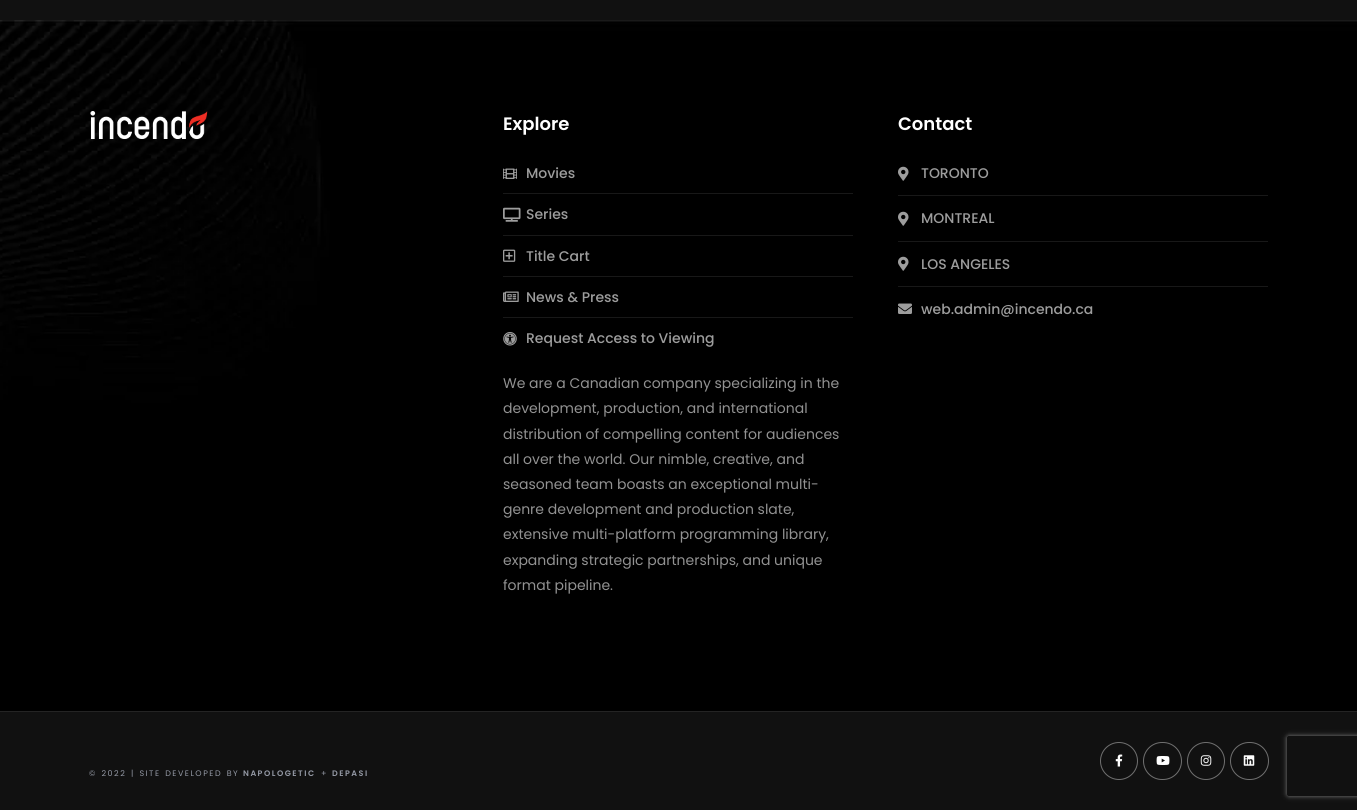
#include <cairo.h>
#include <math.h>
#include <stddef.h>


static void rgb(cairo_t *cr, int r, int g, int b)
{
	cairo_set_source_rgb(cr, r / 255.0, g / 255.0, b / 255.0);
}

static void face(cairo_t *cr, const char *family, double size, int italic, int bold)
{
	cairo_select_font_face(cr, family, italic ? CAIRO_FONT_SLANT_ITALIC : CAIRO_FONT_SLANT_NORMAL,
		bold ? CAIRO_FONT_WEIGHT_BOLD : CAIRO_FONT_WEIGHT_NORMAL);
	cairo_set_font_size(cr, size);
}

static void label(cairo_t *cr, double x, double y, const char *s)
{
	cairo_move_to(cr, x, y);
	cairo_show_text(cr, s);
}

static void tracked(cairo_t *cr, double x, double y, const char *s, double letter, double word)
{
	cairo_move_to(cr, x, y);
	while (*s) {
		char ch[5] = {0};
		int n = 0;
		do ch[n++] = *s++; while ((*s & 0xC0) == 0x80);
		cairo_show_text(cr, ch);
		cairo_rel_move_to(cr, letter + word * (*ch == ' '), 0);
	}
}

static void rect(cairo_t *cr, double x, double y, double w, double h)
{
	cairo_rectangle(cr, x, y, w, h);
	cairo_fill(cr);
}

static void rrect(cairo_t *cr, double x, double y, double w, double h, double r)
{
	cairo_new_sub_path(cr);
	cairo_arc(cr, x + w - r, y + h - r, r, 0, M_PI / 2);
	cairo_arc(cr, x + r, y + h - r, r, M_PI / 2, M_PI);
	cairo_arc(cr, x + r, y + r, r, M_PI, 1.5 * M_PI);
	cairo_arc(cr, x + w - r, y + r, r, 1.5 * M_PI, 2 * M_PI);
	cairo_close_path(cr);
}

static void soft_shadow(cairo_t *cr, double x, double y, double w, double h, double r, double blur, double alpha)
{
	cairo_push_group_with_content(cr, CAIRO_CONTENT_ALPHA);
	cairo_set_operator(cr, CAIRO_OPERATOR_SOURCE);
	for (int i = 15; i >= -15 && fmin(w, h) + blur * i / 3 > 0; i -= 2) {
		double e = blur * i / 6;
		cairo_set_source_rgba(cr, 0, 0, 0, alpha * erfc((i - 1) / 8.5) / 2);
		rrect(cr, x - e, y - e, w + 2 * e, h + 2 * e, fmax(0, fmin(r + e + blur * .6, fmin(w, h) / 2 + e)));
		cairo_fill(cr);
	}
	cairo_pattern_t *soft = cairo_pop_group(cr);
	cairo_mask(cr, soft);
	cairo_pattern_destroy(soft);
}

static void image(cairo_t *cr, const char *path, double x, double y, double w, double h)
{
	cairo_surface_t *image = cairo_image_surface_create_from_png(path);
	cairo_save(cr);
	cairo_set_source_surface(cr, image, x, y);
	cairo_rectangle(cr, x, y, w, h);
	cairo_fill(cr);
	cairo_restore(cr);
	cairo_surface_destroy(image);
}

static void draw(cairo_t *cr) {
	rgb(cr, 17, 17, 17);
	cairo_paint(cr);
	image(cr, "image0.png", 0, 20, 1357, 691);
	image(cr, "image1.png", 90, 111, 118, 28);
	face(cr, "Poppins SemiBold", 18, 0, 0);
	rgb(cr, 255, 255, 255);
	label(cr, 503, 130, "Explore");
	image(cr, "image2.png", 503, 168, 14, 11);
	face(cr, "Poppins Medium", 14, 0, 0);
	rgb(cr, 157, 157, 157);
	label(cr, 526, 178, "Movies");
	rgb(cr, 24, 24, 24);
	rect(cr, 503, 193, 350, 1);
	image(cr, "image3.png", 503, 207, 18, 15);
	rgb(cr, 157, 157, 157);
	label(cr, 526, 219, "Series");
	rgb(cr, 24, 24, 24);
	rect(cr, 503, 235, 350, 1);
	image(cr, "image4.png", 503, 249, 13, 13);
	rgb(cr, 157, 157, 157);
	label(cr, 526, 261, "Title Cart");
	rgb(cr, 24, 24, 24);
	rect(cr, 503, 276, 350, 1);
	image(cr, "image5.png", 503, 291, 16, 11);
	rgb(cr, 157, 157, 157);
	label(cr, 526, 302, "News & Press");
	rgb(cr, 24, 24, 24);
	rect(cr, 503, 317, 350, 1);
	image(cr, "image6.png", 503, 332, 14, 14);
	rgb(cr, 157, 157, 157);
	label(cr, 526, 343, "Request Access to Viewing");
	face(cr, "Poppins", 14, 0, 0);
	rgb(cr, 146, 146, 146);
	label(cr, 503, 388, "We are a Canadian company specializing in the");
	label(cr, 503, 413, "development, production, and international");
	label(cr, 503, 439, "distribution of compelling content for audiences");
	label(cr, 503, 464, "all over the world. Our nimble, creative, and");
	label(cr, 503, 489, "seasoned team boasts an exceptional multi-");
	label(cr, 503, 514, "genre development and production slate,");
	label(cr, 503, 539, "extensive multi-platform programming library,");
	label(cr, 503, 565, "expanding strategic partnerships, and unique");
	label(cr, 503, 590, "format pipeline.");
	face(cr, "Poppins SemiBold", 18, 0, 0);
	rgb(cr, 255, 255, 255);
	label(cr, 898, 130, "Contact");
	image(cr, "image7.png", 898, 166, 11, 15);
	face(cr, "Poppins Medium", 14, 0, 0);
	rgb(cr, 157, 157, 157);
	label(cr, 921, 178, "TORONTO");
	rgb(cr, 24, 24, 24);
	rect(cr, 898, 195, 370, 1);
	image(cr, "image7.png", 898, 211, 11, 15);
	rgb(cr, 157, 157, 157);
	label(cr, 921, 223, "MONTREAL");
	rgb(cr, 24, 24, 24);
	rect(cr, 898, 241, 370, 1);
	image(cr, "image7.png", 898, 256, 11, 15);
	rgb(cr, 157, 157, 157);
	label(cr, 921, 269, "LOS ANGELES");
	rgb(cr, 24, 24, 24);
	rect(cr, 898, 286, 370, 1);
	image(cr, "image8.png", 898, 303, 14, 11);
	rgb(cr, 157, 157, 157);
	label(cr, 921, 314, "web.admin@incendo.ca");
	rgb(cr, 36, 36, 36);
	rect(cr, 0, 711, 1357, 1);
	face(cr, "Poppins", 8, 0, 0);
	rgb(cr, 148, 153, 165);
	tracked(cr, 89, 776, "© 2022 | SITE DEVELOPED BY", 1.5, 1);
	face(cr, "Poppins SemiBold", 8, 0, 0);
	tracked(cr, 243, 776, "NAPOLOGETIC", 1.5, 0);
	face(cr, "Poppins", 8, 0, 0);
	tracked(cr, 321, 776, "+", 1.5, 0);
	face(cr, "Poppins SemiBold", 8, 0, 0);
	tracked(cr, 332, 776, "DEPASI", 1.5, 0);
	cairo_new_path(cr);
	cairo_arc(cr, 1119, 761, 18.5, 0, 2 * M_PI);
	rgb(cr, 112, 112, 112);
	cairo_set_line_width(cr, 1);
	cairo_stroke(cr);
	image(cr, "image9.png", 1115, 754, 8, 13);
	rrect(cr, 1143.5, 742.5, 38, 37, 18.5);
	cairo_stroke(cr);
	image(cr, "image10.png", 1156, 756, 14, 9);
	cairo_arc(cr, 1206, 761, 18.5, 0, 2 * M_PI);
	cairo_stroke(cr);
	image(cr, "image11.png", 1200, 755, 12, 11);
	rrect(cr, 1230.5, 742.5, 38, 37, 18.5);
	cairo_stroke(cr);
	image(cr, "image12.png", 1243, 755, 12, 11);
	cairo_save(cr);
	cairo_set_fill_rule(cr, CAIRO_FILL_RULE_EVEN_ODD);
	cairo_new_path(cr);
	cairo_move_to(cr, 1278, 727);
	cairo_line_to(cr, 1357, 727);
	cairo_line_to(cr, 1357, 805);
	cairo_line_to(cr, 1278, 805);
	cairo_close_path(cr);
	cairo_move_to(cr, 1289, 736);
	cairo_line_to(cr, 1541, 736);
	cairo_curve_to(cr, 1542, 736, 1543, 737, 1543, 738);
	cairo_line_to(cr, 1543, 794);
	cairo_curve_to(cr, 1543, 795, 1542, 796, 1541, 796);
	cairo_line_to(cr, 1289, 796);
	cairo_curve_to(cr, 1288, 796, 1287, 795, 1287, 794);
	cairo_line_to(cr, 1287, 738);
	cairo_curve_to(cr, 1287, 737, 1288, 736, 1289, 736);
	cairo_close_path(cr);
	cairo_clip(cr);
	rgb(cr, 128, 128, 128);
	soft_shadow(cr, 1287, 736, 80, 60, 2, 2.5, 1);
	cairo_restore(cr);
}

int main(void) {
	cairo_surface_t *surface = cairo_image_surface_create(CAIRO_FORMAT_RGB24, 1357, 810);
	cairo_t *cr = cairo_create(surface);
	cairo_font_options_t *options = cairo_font_options_create();
	cairo_font_options_set_hint_metrics(options, CAIRO_HINT_METRICS_OFF);
	cairo_font_options_set_hint_style(options, CAIRO_HINT_STYLE_NONE);
	cairo_set_font_options(cr, options);
	cairo_set_miter_limit(cr, 4);
	draw(cr);
	cairo_surface_write_to_png(surface, "render.png");
	cairo_font_options_destroy(options);
	cairo_destroy(cr);
	cairo_surface_destroy(surface);
	return 0;
}
